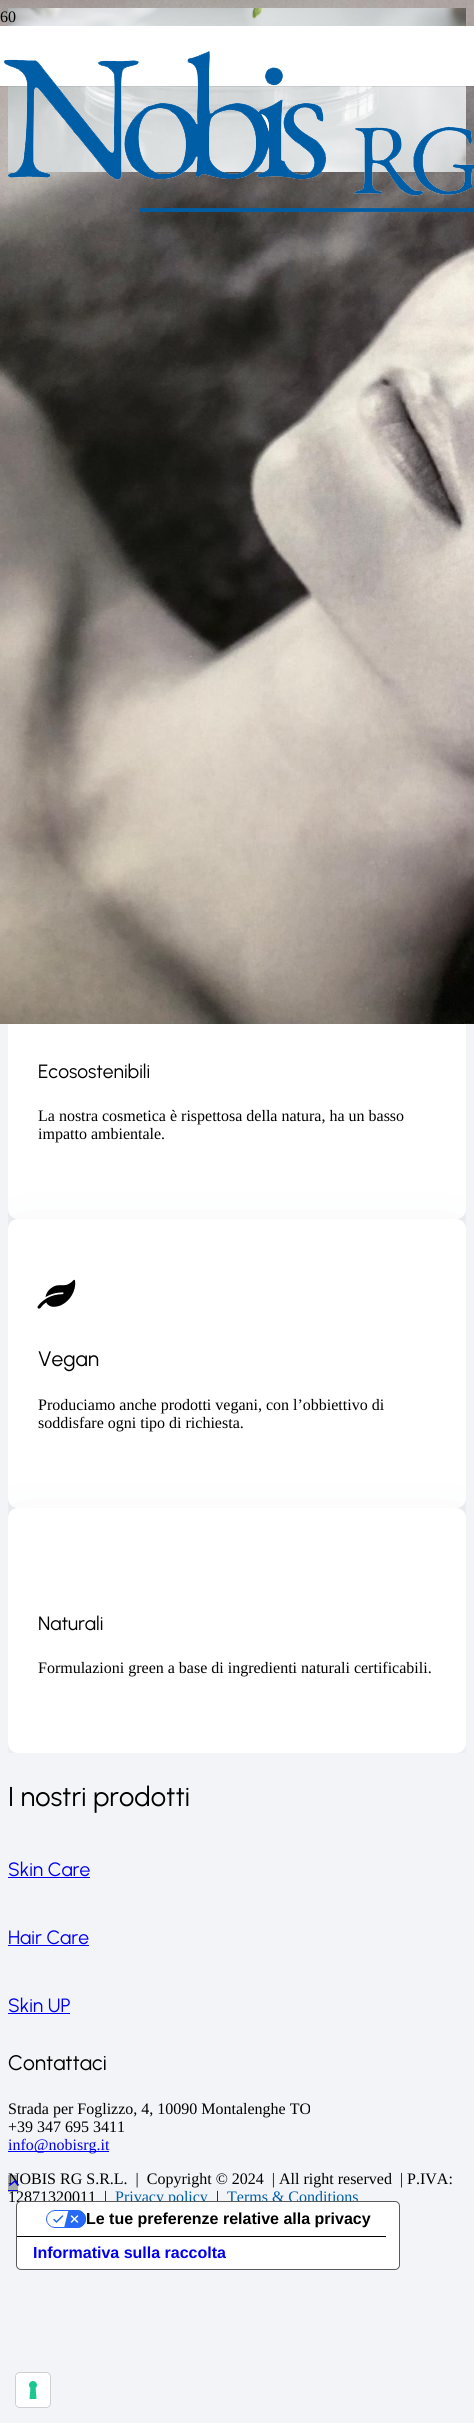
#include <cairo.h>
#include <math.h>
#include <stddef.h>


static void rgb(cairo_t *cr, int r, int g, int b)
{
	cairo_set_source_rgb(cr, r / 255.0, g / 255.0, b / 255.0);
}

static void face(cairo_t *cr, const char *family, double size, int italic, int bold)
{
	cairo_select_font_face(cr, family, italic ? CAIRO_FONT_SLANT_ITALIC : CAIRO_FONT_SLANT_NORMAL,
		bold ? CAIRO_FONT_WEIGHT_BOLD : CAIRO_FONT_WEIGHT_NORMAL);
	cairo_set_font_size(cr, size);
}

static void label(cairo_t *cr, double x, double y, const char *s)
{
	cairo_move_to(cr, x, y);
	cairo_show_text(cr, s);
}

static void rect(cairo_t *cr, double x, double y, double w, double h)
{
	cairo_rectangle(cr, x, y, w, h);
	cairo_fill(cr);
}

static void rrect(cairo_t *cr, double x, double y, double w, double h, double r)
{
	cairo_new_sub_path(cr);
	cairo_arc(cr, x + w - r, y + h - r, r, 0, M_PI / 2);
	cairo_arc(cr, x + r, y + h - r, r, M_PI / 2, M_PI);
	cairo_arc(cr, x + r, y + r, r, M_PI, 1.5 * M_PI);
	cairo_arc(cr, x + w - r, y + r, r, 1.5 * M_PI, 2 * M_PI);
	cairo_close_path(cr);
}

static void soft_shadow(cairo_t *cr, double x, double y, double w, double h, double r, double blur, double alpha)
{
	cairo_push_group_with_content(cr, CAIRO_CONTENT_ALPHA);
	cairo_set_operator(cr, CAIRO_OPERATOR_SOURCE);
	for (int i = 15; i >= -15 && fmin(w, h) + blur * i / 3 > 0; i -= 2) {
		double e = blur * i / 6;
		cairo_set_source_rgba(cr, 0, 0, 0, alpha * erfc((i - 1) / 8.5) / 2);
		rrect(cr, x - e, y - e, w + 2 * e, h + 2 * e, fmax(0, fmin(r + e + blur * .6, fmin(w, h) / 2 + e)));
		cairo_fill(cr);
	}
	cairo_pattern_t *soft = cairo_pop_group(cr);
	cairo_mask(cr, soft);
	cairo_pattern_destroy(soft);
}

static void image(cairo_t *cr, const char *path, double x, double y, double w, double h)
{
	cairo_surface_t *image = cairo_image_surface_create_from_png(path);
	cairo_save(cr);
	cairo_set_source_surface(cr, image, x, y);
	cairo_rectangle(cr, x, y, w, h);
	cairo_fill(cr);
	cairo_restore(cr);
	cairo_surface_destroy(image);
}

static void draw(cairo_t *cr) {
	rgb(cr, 242, 244, 247);
	cairo_paint(cr);
	cairo_save(cr);
	cairo_rectangle(cr, 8, 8, 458, 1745);
	cairo_clip(cr);
	rgb(cr, 53, 65, 91);
	soft_shadow(cr, 18, 942, 438, 277, 0, 25, 0.1);
	cairo_restore(cr);
	rgb(cr, 255, 255, 255);
	rrect(cr, 8, 922, 458, 297, 10);
	cairo_fill(cr);
	image(cr, "image1.png", 0, 0, 474, 1024);
	image(cr, "image2.png", 8, 8, 458, 164);
	face(cr, "Liberation Serif", 16, 0, 0);
	rgb(cr, 0, 0, 0);
	label(cr, 0, 22, "60");
	cairo_set_source_rgba(cr, 0, 0, 0, 0.08);
	rect(cr, 0, 86, 474, 1);
	rgb(cr, 255, 255, 255);
	rect(cr, 0, 26, 474, 60);
	image(cr, "image0.png", 3, 51, 471, 161);
	face(cr, "Urbanist", 19.25, 0, 0);
	rgb(cr, 0, 0, 0);
	label(cr, 38, 1078, "Ecosostenibili");
	face(cr, "Liberation Serif", 16, 0, 0);
	label(cr, 38, 1121, "La nostra cosmetica è rispettosa della natura, ha un basso");
	label(cr, 38, 1139, "impatto ambientale.");
	cairo_save(cr);
	cairo_rectangle(cr, 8, 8, 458, 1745);
	cairo_clip(cr);
	rgb(cr, 53, 65, 91);
	soft_shadow(cr, 18, 1239, 438, 269, 0, 25, 0.1);
	cairo_restore(cr);
	rgb(cr, 255, 255, 255);
	rrect(cr, 8, 1219, 458, 289, 10);
	cairo_fill(cr);
	image(cr, "image3.png", 37, 1279, 39, 30);
	face(cr, "Urbanist", 21, 0, 0);
	rgb(cr, 0, 0, 0);
	label(cr, 38, 1366, "Vegan");
	face(cr, "Liberation Serif", 16, 0, 0);
	label(cr, 38, 1410, "Produciamo anche prodotti vegani, con l’obbiettivo di");
	label(cr, 38, 1428, "soddisfare ogni tipo di richiesta.");
	cairo_save(cr);
	cairo_rectangle(cr, 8, 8, 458, 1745);
	cairo_clip(cr);
	rgb(cr, 53, 65, 91);
	soft_shadow(cr, 18, 1528, 438, 225, 0, 25, 0.1);
	cairo_restore(cr);
	rgb(cr, 255, 255, 255);
	rrect(cr, 8, 1508, 458, 245, 10);
	cairo_fill(cr);
	face(cr, "Urbanist", 19.25, 0, 0);
	rgb(cr, 0, 0, 0);
	label(cr, 38, 1630, "Naturali");
	face(cr, "Liberation Serif", 16, 0, 0);
	label(cr, 38, 1673, "Formulazioni green a base di ingredienti naturali certificabili.");
	face(cr, "Urbanist", 27.25, 0, 0);
	label(cr, 8, 1806, "I nostri prodotti");
	face(cr, "Urbanist", 19.25, 0, 0);
	rgb(cr, 0, 0, 238);
	label(cr, 8, 1876, "Skin Care");
	rect(cr, 8, 1877, 82, 1);
	label(cr, 8, 1944, "Hair Care");
	rect(cr, 8, 1945, 81, 1);
	label(cr, 8, 2012, "Skin UP");
	rect(cr, 8, 2013, 62, 1);
	face(cr, "Urbanist", 21, 0, 0);
	rgb(cr, 0, 0, 0);
	label(cr, 8, 2070, "Contattaci");
	face(cr, "Liberation Serif", 16, 0, 0);
	label(cr, 8, 2114, "Strada per Foglizzo, 4, 10090 Montalenghe TO");
	label(cr, 8, 2132, "+39 347 695 3411");
	rgb(cr, 0, 0, 238);
	rect(cr, 8, 2151, 101, 1);
	label(cr, 8, 2150, "info@nobisrg.it");
	rgb(cr, 0, 0, 0);
	label(cr, 8, 2184, "NOBIS RG S.R.L.  |  Copyright © 2024  | All right reserved  | P.IVA:");
	label(cr, 8, 2202, "12871320011  |");
	rgb(cr, 0, 94, 167);
	label(cr, 115, 2202, "Privacy policy");
	rgb(cr, 0, 0, 0);
	label(cr, 216, 2202, "|");
	rgb(cr, 0, 94, 167);
	label(cr, 227, 2202, "Terms & Conditions");
	cairo_set_source_rgba(cr, 0, 0, 0, 0.3);
	rect(cr, 8, 2175, 10, 17);
	image(cr, "image4.png", 9, 2180, 10, 6);
	rgb(cr, 0, 0, 238);
	rect(cr, 8, 2190, 10, 1);
	rgb(cr, 255, 255, 255);
	rrect(cr, 16.5, 2201.5, 383, 68, 4.5);
	cairo_fill_preserve(cr);
	rgb(cr, 89, 89, 89);
	cairo_set_line_width(cr, 1);
	cairo_stroke(cr);
	rgb(cr, 0, 0, 0);
	rect(cr, 17, 2236, 369, 1);
	image(cr, "image5.png", 46, 2210, 40, 18);
	face(cr, "Liberation Sans", 16, 0, 1);
	label(cr, 86, 2224, "Le tue preferenze relative alla privacy");
	rgb(cr, 0, 0, 238);
	label(cr, 33, 2258, "Informativa sulla raccolta");
	rrect(cr, 15.5, 2372.5, 35, 35, 4.5);
	rgb(cr, 206, 207, 210);
	cairo_stroke(cr);
	rgb(cr, 255, 255, 255);
	rrect(cr, 16, 2373, 34, 34, 4);
	cairo_fill(cr);
	image(cr, "image6.png", 29, 2381, 8, 18);
}

int main(void) {
	cairo_surface_t *surface = cairo_image_surface_create(CAIRO_FORMAT_RGB24, 474, 2423);
	cairo_t *cr = cairo_create(surface);
	cairo_font_options_t *options = cairo_font_options_create();
	cairo_font_options_set_hint_metrics(options, CAIRO_HINT_METRICS_OFF);
	cairo_font_options_set_hint_style(options, CAIRO_HINT_STYLE_NONE);
	cairo_set_font_options(cr, options);
	cairo_set_miter_limit(cr, 4);
	draw(cr);
	cairo_surface_write_to_png(surface, "render.png");
	cairo_font_options_destroy(options);
	cairo_destroy(cr);
	cairo_surface_destroy(surface);
	return 0;
}
